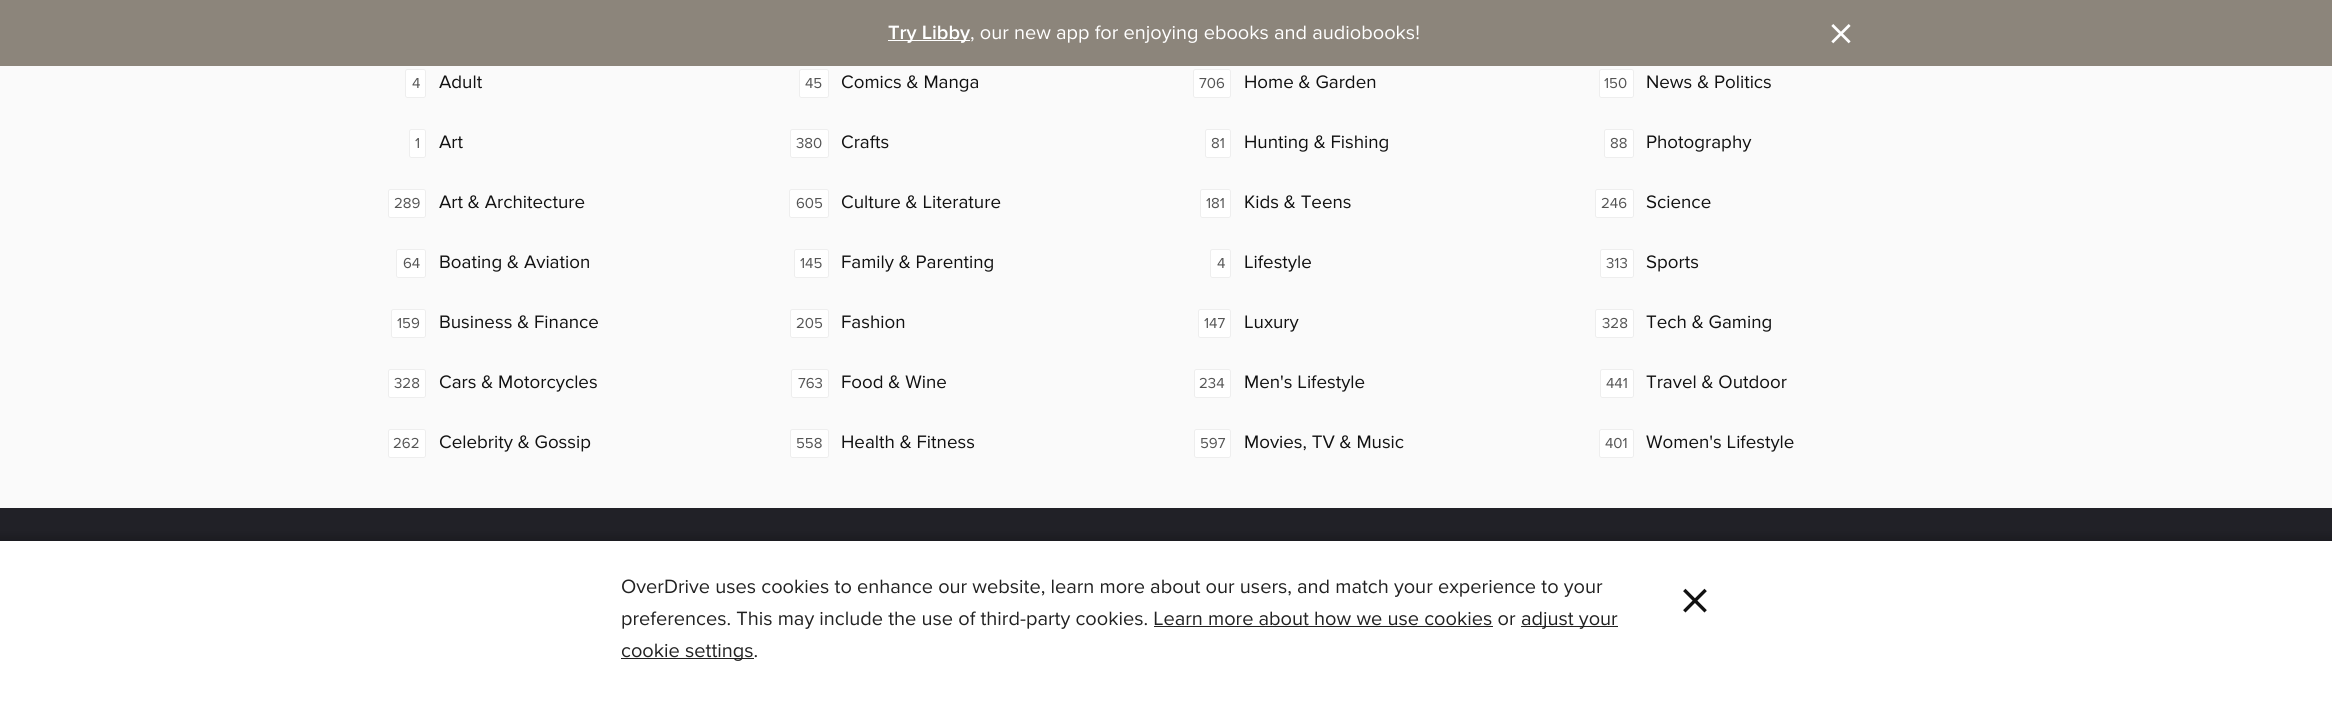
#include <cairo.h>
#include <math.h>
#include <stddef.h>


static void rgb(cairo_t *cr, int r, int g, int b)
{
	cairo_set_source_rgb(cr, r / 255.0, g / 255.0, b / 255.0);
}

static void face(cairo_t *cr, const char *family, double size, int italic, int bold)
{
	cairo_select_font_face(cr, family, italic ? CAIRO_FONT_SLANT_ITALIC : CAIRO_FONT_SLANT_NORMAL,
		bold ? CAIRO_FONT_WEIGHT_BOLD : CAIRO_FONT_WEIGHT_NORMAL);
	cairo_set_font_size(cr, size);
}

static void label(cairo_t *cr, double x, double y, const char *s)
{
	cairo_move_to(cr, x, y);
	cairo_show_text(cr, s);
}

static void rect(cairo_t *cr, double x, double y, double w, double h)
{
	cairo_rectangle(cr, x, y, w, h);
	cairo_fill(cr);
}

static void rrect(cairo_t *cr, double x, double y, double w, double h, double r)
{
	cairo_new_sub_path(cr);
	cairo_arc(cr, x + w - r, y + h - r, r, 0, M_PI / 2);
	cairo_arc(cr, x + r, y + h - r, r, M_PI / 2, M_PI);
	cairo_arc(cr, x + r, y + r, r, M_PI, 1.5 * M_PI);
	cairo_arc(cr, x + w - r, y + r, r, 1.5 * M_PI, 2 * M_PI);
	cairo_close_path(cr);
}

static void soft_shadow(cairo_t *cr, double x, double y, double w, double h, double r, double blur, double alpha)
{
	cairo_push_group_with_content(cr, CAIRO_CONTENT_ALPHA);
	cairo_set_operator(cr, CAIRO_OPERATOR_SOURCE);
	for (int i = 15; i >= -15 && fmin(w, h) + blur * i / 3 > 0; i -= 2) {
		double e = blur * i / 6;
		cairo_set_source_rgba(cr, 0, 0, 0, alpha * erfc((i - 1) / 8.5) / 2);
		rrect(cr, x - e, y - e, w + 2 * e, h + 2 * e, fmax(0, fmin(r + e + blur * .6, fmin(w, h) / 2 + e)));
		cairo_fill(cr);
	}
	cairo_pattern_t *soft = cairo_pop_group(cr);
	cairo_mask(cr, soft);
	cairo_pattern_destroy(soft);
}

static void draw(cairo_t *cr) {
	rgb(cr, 250, 250, 250);
	cairo_paint(cr);
	rgb(cr, 140, 133, 123);
	rect(cr, 0, 0, 2332, 66);
	rgb(cr, 255, 255, 255);
	rect(cr, 888, 40, 82, 1);
	face(cr, "Proxima Nova SemiBold", 20, 0, 0);
	label(cr, 888, 39, "Try Libby");
	face(cr, "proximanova", 20, 0, 0);
	label(cr, 970, 39, ", our new app for enjoying ebooks and audiobooks!");
	face(cr, "proximanova", 52, 0, 0);
	label(cr, 1828, 51, "×");
	rrect(cr, 405.5, 69.5, 20, 28, 2);
	cairo_fill_preserve(cr);
	rgb(cr, 238, 238, 238);
	cairo_set_line_width(cr, 1);
	cairo_stroke(cr);
	face(cr, "proximanova", 15, 0, 0);
	rgb(cr, 85, 85, 85);
	label(cr, 412, 88, "4");
	face(cr, "proximanova", 18.75, 0, 0);
	rgb(cr, 17, 17, 17);
	label(cr, 439, 88, "Adult");
	rgb(cr, 255, 255, 255);
	rrect(cr, 799.5, 69.5, 29, 28, 2);
	cairo_fill_preserve(cr);
	rgb(cr, 238, 238, 238);
	cairo_stroke(cr);
	face(cr, "proximanova", 15, 0, 0);
	rgb(cr, 85, 85, 85);
	label(cr, 805, 88, "45");
	face(cr, "proximanova", 18.75, 0, 0);
	rgb(cr, 17, 17, 17);
	label(cr, 841, 88, "Comics & Manga");
	rgb(cr, 255, 255, 255);
	rrect(cr, 1193.5, 69.5, 37, 28, 2);
	cairo_fill_preserve(cr);
	rgb(cr, 238, 238, 238);
	cairo_stroke(cr);
	face(cr, "proximanova", 15, 0, 0);
	rgb(cr, 85, 85, 85);
	label(cr, 1199, 88, "706");
	face(cr, "proximanova", 18.75, 0, 0);
	rgb(cr, 17, 17, 17);
	label(cr, 1244, 88, "Home & Garden");
	rgb(cr, 255, 255, 255);
	rrect(cr, 1599.5, 69.5, 34, 28, 2);
	cairo_fill_preserve(cr);
	rgb(cr, 238, 238, 238);
	cairo_stroke(cr);
	face(cr, "proximanova", 15, 0, 0);
	rgb(cr, 85, 85, 85);
	label(cr, 1604, 88, "150");
	face(cr, "proximanova", 18.75, 0, 0);
	rgb(cr, 17, 17, 17);
	label(cr, 1646, 88, "News & Politics");
	rgb(cr, 255, 255, 255);
	rrect(cr, 409.5, 129.5, 16, 28, 2);
	cairo_fill_preserve(cr);
	rgb(cr, 238, 238, 238);
	cairo_stroke(cr);
	face(cr, "proximanova", 15, 0, 0);
	rgb(cr, 85, 85, 85);
	label(cr, 415, 148, "1");
	face(cr, "proximanova", 18.75, 0, 0);
	rgb(cr, 17, 17, 17);
	label(cr, 439, 148, "Art");
	rgb(cr, 255, 255, 255);
	rrect(cr, 790.5, 129.5, 38, 28, 2);
	cairo_fill_preserve(cr);
	rgb(cr, 238, 238, 238);
	cairo_stroke(cr);
	face(cr, "proximanova", 15, 0, 0);
	rgb(cr, 85, 85, 85);
	label(cr, 796, 148, "380");
	face(cr, "proximanova", 18.75, 0, 0);
	rgb(cr, 17, 17, 17);
	label(cr, 841, 148, "Crafts");
	rgb(cr, 255, 255, 255);
	rrect(cr, 1205.5, 129.5, 25, 28, 2);
	cairo_fill_preserve(cr);
	rgb(cr, 238, 238, 238);
	cairo_stroke(cr);
	face(cr, "proximanova", 15, 0, 0);
	rgb(cr, 85, 85, 85);
	label(cr, 1211, 148, "81");
	face(cr, "proximanova", 18.75, 0, 0);
	rgb(cr, 17, 17, 17);
	label(cr, 1244, 148, "Hunting & Fishing");
	rgb(cr, 255, 255, 255);
	rrect(cr, 1604.5, 129.5, 29, 28, 2);
	cairo_fill_preserve(cr);
	rgb(cr, 238, 238, 238);
	cairo_stroke(cr);
	face(cr, "proximanova", 15, 0, 0);
	rgb(cr, 85, 85, 85);
	label(cr, 1610, 148, "88");
	face(cr, "proximanova", 18.75, 0, 0);
	rgb(cr, 17, 17, 17);
	label(cr, 1646, 148, "Photography");
	rgb(cr, 255, 255, 255);
	rrect(cr, 388.5, 189.5, 37, 28, 2);
	cairo_fill_preserve(cr);
	rgb(cr, 238, 238, 238);
	cairo_stroke(cr);
	face(cr, "proximanova", 15, 0, 0);
	rgb(cr, 85, 85, 85);
	label(cr, 394, 208, "289");
	face(cr, "proximanova", 18.75, 0, 0);
	rgb(cr, 17, 17, 17);
	label(cr, 439, 208, "Art & Architecture");
	rgb(cr, 255, 255, 255);
	rrect(cr, 789.5, 189.5, 39, 28, 2);
	cairo_fill_preserve(cr);
	rgb(cr, 238, 238, 238);
	cairo_stroke(cr);
	face(cr, "proximanova", 15, 0, 0);
	rgb(cr, 85, 85, 85);
	label(cr, 796, 208, "605");
	face(cr, "proximanova", 18.75, 0, 0);
	rgb(cr, 17, 17, 17);
	label(cr, 841, 208, "Culture & Literature");
	rgb(cr, 255, 255, 255);
	rrect(cr, 1200.5, 189.5, 30, 28, 2);
	cairo_fill_preserve(cr);
	rgb(cr, 238, 238, 238);
	cairo_stroke(cr);
	face(cr, "proximanova", 15, 0, 0);
	rgb(cr, 85, 85, 85);
	label(cr, 1206, 208, "181");
	face(cr, "proximanova", 18.75, 0, 0);
	rgb(cr, 17, 17, 17);
	label(cr, 1244, 208, "Kids & Teens");
	rgb(cr, 255, 255, 255);
	rrect(cr, 1595.5, 189.5, 38, 28, 2);
	cairo_fill_preserve(cr);
	rgb(cr, 238, 238, 238);
	cairo_stroke(cr);
	face(cr, "proximanova", 15, 0, 0);
	rgb(cr, 85, 85, 85);
	label(cr, 1601, 208, "246");
	face(cr, "proximanova", 18.75, 0, 0);
	rgb(cr, 17, 17, 17);
	label(cr, 1646, 208, "Science");
	rgb(cr, 255, 255, 255);
	rrect(cr, 396.5, 249.5, 29, 28, 2);
	cairo_fill_preserve(cr);
	rgb(cr, 238, 238, 238);
	cairo_stroke(cr);
	face(cr, "proximanova", 15, 0, 0);
	rgb(cr, 85, 85, 85);
	label(cr, 403, 268, "64");
	face(cr, "proximanova", 18.75, 0, 0);
	rgb(cr, 17, 17, 17);
	label(cr, 439, 268, "Boating & Aviation");
	rgb(cr, 255, 255, 255);
	rrect(cr, 794.5, 249.5, 34, 28, 2);
	cairo_fill_preserve(cr);
	rgb(cr, 238, 238, 238);
	cairo_stroke(cr);
	face(cr, "proximanova", 15, 0, 0);
	rgb(cr, 85, 85, 85);
	label(cr, 800, 268, "145");
	face(cr, "proximanova", 18.75, 0, 0);
	rgb(cr, 17, 17, 17);
	label(cr, 841, 268, "Family & Parenting");
	rgb(cr, 255, 255, 255);
	rrect(cr, 1210.5, 249.5, 20, 28, 2);
	cairo_fill_preserve(cr);
	rgb(cr, 238, 238, 238);
	cairo_stroke(cr);
	face(cr, "proximanova", 15, 0, 0);
	rgb(cr, 85, 85, 85);
	label(cr, 1217, 268, "4");
	face(cr, "proximanova", 18.75, 0, 0);
	rgb(cr, 17, 17, 17);
	label(cr, 1244, 268, "Lifestyle");
	rgb(cr, 255, 255, 255);
	rrect(cr, 1600.5, 249.5, 33, 28, 2);
	cairo_fill_preserve(cr);
	rgb(cr, 238, 238, 238);
	cairo_stroke(cr);
	face(cr, "proximanova", 15, 0, 0);
	rgb(cr, 85, 85, 85);
	label(cr, 1606, 268, "313");
	face(cr, "proximanova", 18.75, 0, 0);
	rgb(cr, 17, 17, 17);
	label(cr, 1646, 268, "Sports");
	rgb(cr, 255, 255, 255);
	rrect(cr, 391.5, 309.5, 34, 28, 2);
	cairo_fill_preserve(cr);
	rgb(cr, 238, 238, 238);
	cairo_stroke(cr);
	face(cr, "proximanova", 15, 0, 0);
	rgb(cr, 85, 85, 85);
	label(cr, 397, 328, "159");
	face(cr, "proximanova", 18.75, 0, 0);
	rgb(cr, 17, 17, 17);
	label(cr, 439, 328, "Business & Finance");
	rgb(cr, 255, 255, 255);
	rrect(cr, 790.5, 309.5, 38, 28, 2);
	cairo_fill_preserve(cr);
	rgb(cr, 238, 238, 238);
	cairo_stroke(cr);
	face(cr, "proximanova", 15, 0, 0);
	rgb(cr, 85, 85, 85);
	label(cr, 796, 328, "205");
	face(cr, "proximanova", 18.75, 0, 0);
	rgb(cr, 17, 17, 17);
	label(cr, 841, 328, "Fashion");
	rgb(cr, 255, 255, 255);
	rrect(cr, 1198.5, 309.5, 32, 28, 2);
	cairo_fill_preserve(cr);
	rgb(cr, 238, 238, 238);
	cairo_stroke(cr);
	face(cr, "proximanova", 15, 0, 0);
	rgb(cr, 85, 85, 85);
	label(cr, 1204, 328, "147");
	face(cr, "proximanova", 18.75, 0, 0);
	rgb(cr, 17, 17, 17);
	label(cr, 1244, 328, "Luxury");
	rgb(cr, 255, 255, 255);
	rrect(cr, 1595.5, 309.5, 38, 28, 2);
	cairo_fill_preserve(cr);
	rgb(cr, 238, 238, 238);
	cairo_stroke(cr);
	face(cr, "proximanova", 15, 0, 0);
	rgb(cr, 85, 85, 85);
	label(cr, 1602, 328, "328");
	face(cr, "proximanova", 18.75, 0, 0);
	rgb(cr, 17, 17, 17);
	label(cr, 1646, 328, "Tech & Gaming");
	rgb(cr, 255, 255, 255);
	rrect(cr, 388.5, 369.5, 37, 28, 2);
	cairo_fill_preserve(cr);
	rgb(cr, 238, 238, 238);
	cairo_stroke(cr);
	face(cr, "proximanova", 15, 0, 0);
	rgb(cr, 85, 85, 85);
	label(cr, 394, 388, "328");
	face(cr, "proximanova", 18.75, 0, 0);
	rgb(cr, 17, 17, 17);
	label(cr, 439, 388, "Cars & Motorcycles");
	rgb(cr, 255, 255, 255);
	rrect(cr, 791.5, 369.5, 37, 28, 2);
	cairo_fill_preserve(cr);
	rgb(cr, 238, 238, 238);
	cairo_stroke(cr);
	face(cr, "proximanova", 15, 0, 0);
	rgb(cr, 85, 85, 85);
	label(cr, 798, 388, "763");
	face(cr, "proximanova", 18.75, 0, 0);
	rgb(cr, 17, 17, 17);
	label(cr, 841, 388, "Food & Wine");
	rgb(cr, 255, 255, 255);
	rrect(cr, 1194.5, 369.5, 36, 28, 2);
	cairo_fill_preserve(cr);
	rgb(cr, 238, 238, 238);
	cairo_stroke(cr);
	face(cr, "proximanova", 15, 0, 0);
	rgb(cr, 85, 85, 85);
	label(cr, 1199, 388, "234");
	face(cr, "proximanova", 18.75, 0, 0);
	rgb(cr, 17, 17, 17);
	label(cr, 1244, 388, "Men's Lifestyle");
	rgb(cr, 255, 255, 255);
	rrect(cr, 1600.5, 369.5, 33, 28, 2);
	cairo_fill_preserve(cr);
	rgb(cr, 238, 238, 238);
	cairo_stroke(cr);
	face(cr, "proximanova", 15, 0, 0);
	rgb(cr, 85, 85, 85);
	label(cr, 1606, 388, "441");
	face(cr, "proximanova", 18.75, 0, 0);
	rgb(cr, 17, 17, 17);
	label(cr, 1646, 388, "Travel & Outdoor");
	rgb(cr, 255, 255, 255);
	rrect(cr, 388.5, 429.5, 37, 28, 2);
	cairo_fill_preserve(cr);
	rgb(cr, 238, 238, 238);
	cairo_stroke(cr);
	face(cr, "proximanova", 15, 0, 0);
	rgb(cr, 85, 85, 85);
	label(cr, 393, 448, "262");
	face(cr, "proximanova", 18.75, 0, 0);
	rgb(cr, 17, 17, 17);
	label(cr, 439, 448, "Celebrity & Gossip");
	rgb(cr, 255, 255, 255);
	rrect(cr, 790.5, 429.5, 38, 28, 2);
	cairo_fill_preserve(cr);
	rgb(cr, 238, 238, 238);
	cairo_stroke(cr);
	face(cr, "proximanova", 15, 0, 0);
	rgb(cr, 85, 85, 85);
	label(cr, 796, 448, "558");
	face(cr, "proximanova", 18.75, 0, 0);
	rgb(cr, 17, 17, 17);
	label(cr, 841, 448, "Health & Fitness");
	rgb(cr, 255, 255, 255);
	rrect(cr, 1194.5, 429.5, 36, 28, 2);
	cairo_fill_preserve(cr);
	rgb(cr, 238, 238, 238);
	cairo_stroke(cr);
	face(cr, "proximanova", 15, 0, 0);
	rgb(cr, 85, 85, 85);
	label(cr, 1200, 448, "597");
	face(cr, "proximanova", 18.75, 0, 0);
	rgb(cr, 17, 17, 17);
	label(cr, 1244, 448, "Movies, TV & Music");
	rgb(cr, 255, 255, 255);
	rrect(cr, 1599.5, 429.5, 34, 28, 2);
	cairo_fill_preserve(cr);
	rgb(cr, 238, 238, 238);
	cairo_stroke(cr);
	face(cr, "proximanova", 15, 0, 0);
	rgb(cr, 85, 85, 85);
	label(cr, 1605, 448, "401");
	face(cr, "proximanova", 18.75, 0, 0);
	rgb(cr, 17, 17, 17);
	label(cr, 1646, 448, "Women's Lifestyle");
	rgb(cr, 33, 33, 39);
	rect(cr, 0, 508, 2332, 33);
	rgb(cr, 0, 0, 0);
	soft_shadow(cr, -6, 535, 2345, 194, 0, 3, 0.15);
	rgb(cr, 255, 255, 255);
	rect(cr, 0, 541, 2332, 181);
	face(cr, "proximanova", 20, 0, 0);
	rgb(cr, 34, 34, 34);
	label(cr, 621, 593, "OverDrive uses cookies to enhance our website, learn more about our users, and match your experience to your");
	label(cr, 621, 625, "preferences. This may include the use of third-party cookies. Learn more about how we use cookies or");
	rect(cr, 1154, 626, 339, 1);
	rect(cr, 1521, 626, 97, 1);
	label(cr, 1521, 625, "adjust your");
	rect(cr, 621, 658, 133, 1);
	label(cr, 621, 657, "cookie settings.");
	face(cr, "proximanova", 64, 0, 0);
	rgb(cr, 17, 17, 17);
	label(cr, 1679, 622, "×");
}

int main(void) {
	cairo_surface_t *surface = cairo_image_surface_create(CAIRO_FORMAT_RGB24, 2332, 722);
	cairo_t *cr = cairo_create(surface);
	cairo_font_options_t *options = cairo_font_options_create();
	cairo_font_options_set_hint_metrics(options, CAIRO_HINT_METRICS_OFF);
	cairo_font_options_set_hint_style(options, CAIRO_HINT_STYLE_NONE);
	cairo_set_font_options(cr, options);
	cairo_set_miter_limit(cr, 4);
	draw(cr);
	cairo_surface_write_to_png(surface, "render.png");
	cairo_font_options_destroy(options);
	cairo_destroy(cr);
	cairo_surface_destroy(surface);
	return 0;
}
